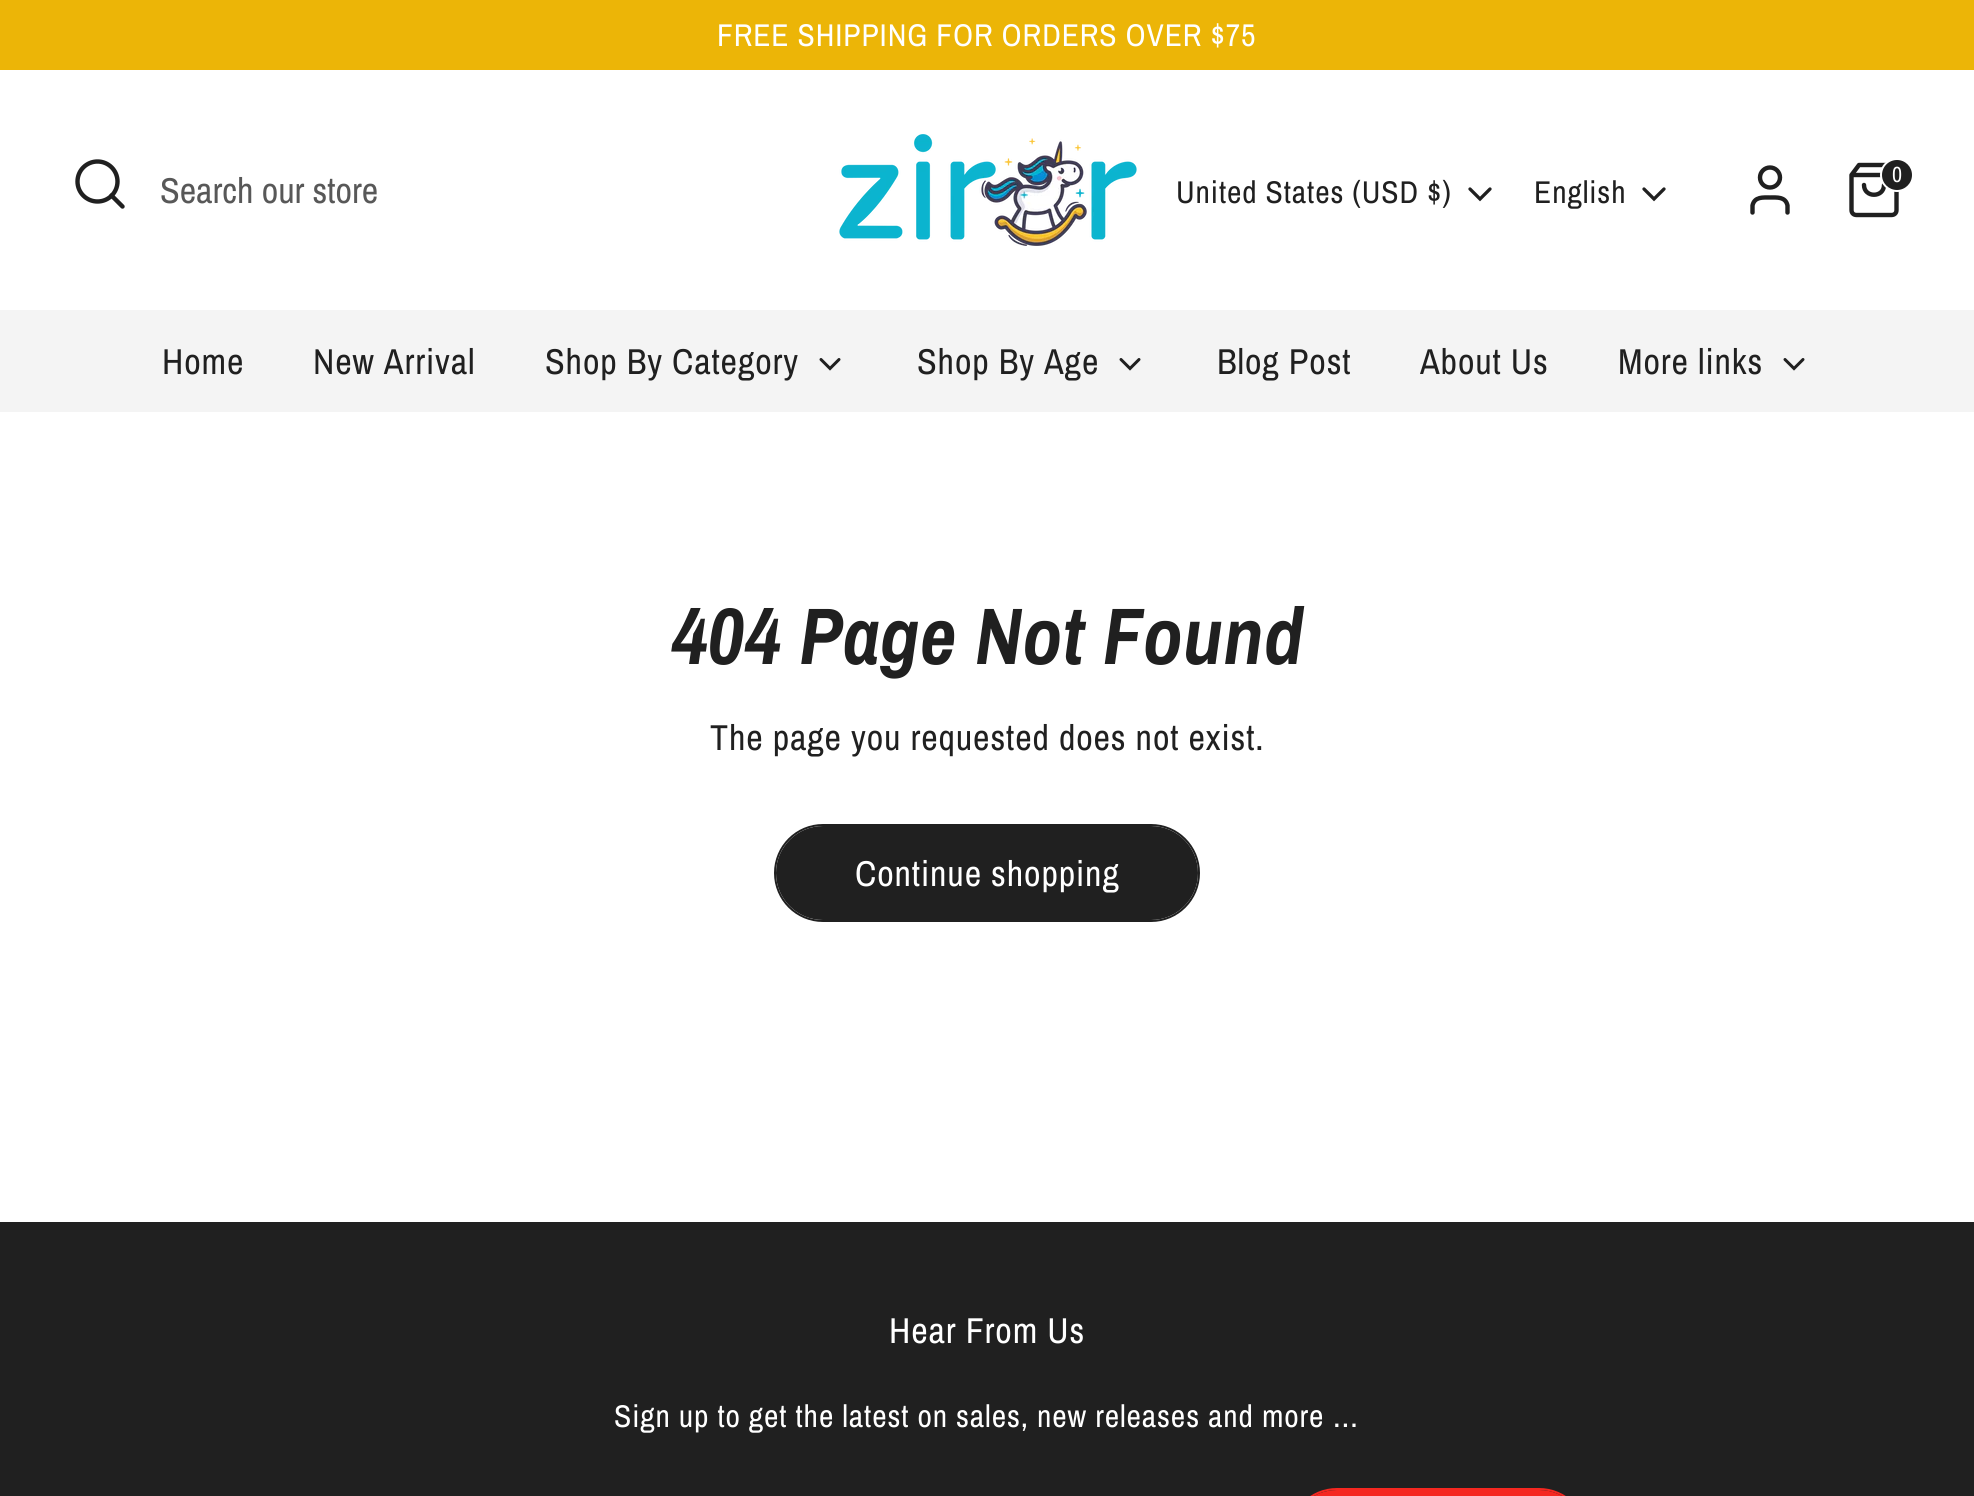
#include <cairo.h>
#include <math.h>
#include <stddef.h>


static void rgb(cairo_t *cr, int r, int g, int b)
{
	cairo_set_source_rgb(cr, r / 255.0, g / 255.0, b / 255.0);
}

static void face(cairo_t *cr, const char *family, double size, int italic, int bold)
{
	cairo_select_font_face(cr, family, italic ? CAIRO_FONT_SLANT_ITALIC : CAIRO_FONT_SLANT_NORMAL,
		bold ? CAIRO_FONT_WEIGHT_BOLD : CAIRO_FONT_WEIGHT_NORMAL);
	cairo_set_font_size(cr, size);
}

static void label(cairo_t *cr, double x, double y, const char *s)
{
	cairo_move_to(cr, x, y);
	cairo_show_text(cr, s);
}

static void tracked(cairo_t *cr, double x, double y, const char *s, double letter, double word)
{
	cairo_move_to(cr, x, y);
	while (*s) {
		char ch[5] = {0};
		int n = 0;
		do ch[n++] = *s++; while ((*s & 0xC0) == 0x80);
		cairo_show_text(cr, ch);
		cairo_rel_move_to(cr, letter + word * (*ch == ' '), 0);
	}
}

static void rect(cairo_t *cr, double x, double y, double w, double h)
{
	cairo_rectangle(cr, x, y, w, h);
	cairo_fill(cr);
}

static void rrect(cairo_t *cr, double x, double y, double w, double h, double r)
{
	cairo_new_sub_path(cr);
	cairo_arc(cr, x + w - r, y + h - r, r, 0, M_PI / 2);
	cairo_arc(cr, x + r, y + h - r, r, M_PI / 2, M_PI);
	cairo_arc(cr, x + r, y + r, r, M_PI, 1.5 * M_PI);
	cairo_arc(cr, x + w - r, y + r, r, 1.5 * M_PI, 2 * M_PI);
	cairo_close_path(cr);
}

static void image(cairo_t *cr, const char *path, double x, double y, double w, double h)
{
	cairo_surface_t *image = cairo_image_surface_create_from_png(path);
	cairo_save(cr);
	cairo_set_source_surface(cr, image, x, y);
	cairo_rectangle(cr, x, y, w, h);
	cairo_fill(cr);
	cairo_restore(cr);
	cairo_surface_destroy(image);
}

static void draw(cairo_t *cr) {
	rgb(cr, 255, 255, 255);
	cairo_paint(cr);
	rgb(cr, 236, 181, 7);
	rect(cr, 0, 0, 1974, 70);
	face(cr, "Archivo Narrow", 31.5, 0, 0);
	rgb(cr, 255, 255, 255);
	tracked(cr, 717, 46, "FREE SHIPPING FOR ORDERS OVER $75", 0.9, 0);
	cairo_new_path(cr);
	cairo_arc(cr, 97.5, 181.5, 20, 0, 2 * M_PI);
	rgb(cr, 32, 32, 32);
	cairo_set_line_width(cr, 4.4);
	cairo_stroke(cr);
	cairo_new_path(cr);
	cairo_move_to(cr, 122.5, 206.5);
	cairo_line_to(cr, 111.5, 195.5);
	cairo_set_line_cap(cr, CAIRO_LINE_CAP_ROUND);
	cairo_set_line_join(cr, CAIRO_LINE_JOIN_ROUND);
	cairo_stroke(cr);
	face(cr, "Archivo Narrow", 36, 0, 0);
	rgb(cr, 88, 88, 88);
	label(cr, 160, 203, "Search our store");
	image(cr, "image0.png", 839, 134, 298, 112);
	cairo_new_path(cr);
	cairo_move_to(cr, 1787.5, 212.5);
	cairo_line_to(cr, 1787.5, 205.5);
	cairo_curve_to(cr, 1785.5, 196.5, 1777, 197.5, 1770, 197.5);
	cairo_curve_to(cr, 1763, 197.5, 1754.5, 196.5, 1752.5, 205.5);
	cairo_line_to(cr, 1752.5, 212.5);
	rgb(cr, 32, 32, 32);
	cairo_stroke(cr);
	cairo_arc(cr, 1770, 177.5, 10, 0, 2 * M_PI);
	cairo_set_line_cap(cr, CAIRO_LINE_CAP_BUTT);
	cairo_set_line_join(cr, CAIRO_LINE_JOIN_MITER);
	cairo_stroke(cr);
	cairo_new_path(cr);
	cairo_move_to(cr, 1859, 165);
	cairo_line_to(cr, 1851.5, 175);
	cairo_line_to(cr, 1851.5, 210);
	cairo_curve_to(cr, 1851.5, 213, 1853.5, 215, 1856.5, 215);
	cairo_line_to(cr, 1891.5, 215);
	cairo_curve_to(cr, 1894.5, 215, 1896.5, 213, 1896.5, 210);
	cairo_line_to(cr, 1896.5, 175);
	cairo_line_to(cr, 1889, 165);
	cairo_close_path(cr);
	cairo_move_to(cr, 1851.5, 175);
	cairo_line_to(cr, 1896.5, 175);
	cairo_move_to(cr, 1884, 185);
	cairo_curve_to(cr, 1884, 198, 1864, 198, 1864, 185);
	cairo_set_line_cap(cr, CAIRO_LINE_CAP_ROUND);
	cairo_set_line_join(cr, CAIRO_LINE_JOIN_ROUND);
	cairo_stroke(cr);
	cairo_arc(cr, 1897, 175, 16, 0, 2 * M_PI);
	cairo_fill_preserve(cr);
	rgb(cr, 255, 255, 255);
	cairo_set_line_width(cr, 2);
	cairo_set_line_cap(cr, CAIRO_LINE_CAP_BUTT);
	cairo_set_line_join(cr, CAIRO_LINE_JOIN_MITER);
	cairo_stroke(cr);
	face(cr, "Archivo Narrow", 22, 0, 0);
	label(cr, 1892, 182, "0");
	face(cr, "Archivo Narrow", 31.5, 0, 0);
	rgb(cr, 32, 32, 32);
	tracked(cr, 1176, 203, "United States (USD $)", 0.9, 0);
	cairo_new_path(cr);
	cairo_move_to(cr, 1470, 189);
	cairo_line_to(cr, 1480, 199);
	cairo_line_to(cr, 1490, 189);
	cairo_set_line_width(cr, 3.3);
	cairo_set_line_cap(cr, CAIRO_LINE_CAP_ROUND);
	cairo_stroke(cr);
	tracked(cr, 1534, 203, "English", 0.9, 0);
	cairo_new_path(cr);
	cairo_move_to(cr, 1644, 189);
	cairo_line_to(cr, 1654, 199);
	cairo_line_to(cr, 1664, 189);
	cairo_stroke(cr);
	rgb(cr, 244, 244, 244);
	rect(cr, 0, 310, 1974, 102);
	face(cr, "Archivo Narrow", 36, 0, 0);
	rgb(cr, 32, 32, 32);
	tracked(cr, 162, 374, "Home", 0.9, 0);
	tracked(cr, 313, 374, "New Arrival", 0.9, 0);
	tracked(cr, 545, 374, "Shop By Category", 0.9, 0);
	cairo_new_path(cr);
	cairo_move_to(cr, 821, 359.5);
	cairo_line_to(cr, 830, 368.5);
	cairo_line_to(cr, 839, 359.5);
	cairo_set_line_width(cr, 3);
	cairo_stroke(cr);
	tracked(cr, 917, 374, "Shop By Age", 0.9, 0);
	cairo_new_path(cr);
	cairo_move_to(cr, 1121, 359.5);
	cairo_line_to(cr, 1130, 368.5);
	cairo_line_to(cr, 1139, 359.5);
	cairo_stroke(cr);
	tracked(cr, 1217, 374, "Blog Post", 0.9, 0);
	tracked(cr, 1420, 374, "About Us", 0.9, 0);
	tracked(cr, 1618, 374, "More links", 0.9, 0);
	cairo_new_path(cr);
	cairo_move_to(cr, 1785, 359.5);
	cairo_line_to(cr, 1794, 368.5);
	cairo_line_to(cr, 1803, 359.5);
	cairo_stroke(cr);
	face(cr, "Archivo Narrow", 80.25, 1, 1);
	label(cr, 671, 664, "404 Page Not Found");
	face(cr, "Archivo Narrow", 36, 0, 0);
	tracked(cr, 710, 750, "The page you requested does not exist.", 0.9, 0);
	rrect(cr, 775, 825, 424, 96, 48);
	cairo_set_line_width(cr, 2);
	cairo_set_line_cap(cr, CAIRO_LINE_CAP_BUTT);
	cairo_stroke(cr);
	rrect(cr, 776, 826, 422, 94, 47);
	cairo_fill(cr);
	rgb(cr, 255, 255, 255);
	tracked(cr, 855, 886, "Continue shopping", 0.9, 0);
	rgb(cr, 32, 32, 32);
	rect(cr, 0, 1222, 1974, 274);
	rgb(cr, 255, 255, 255);
	tracked(cr, 889, 1343, "Hear From Us", 0.9, 0);
	face(cr, "Archivo Narrow", 31.5, 0, 0);
	tracked(cr, 614, 1427, "Sign up to get the latest on sales, new releases and more …", 0.9, 0);
	rrect(cr, 1289, 1489, 298, 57, 48);
	rgb(cr, 245, 39, 32);
	cairo_stroke(cr);
	rrect(cr, 1290, 1490, 296, 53, 47);
	cairo_fill(cr);
}

int main(void) {
	cairo_surface_t *surface = cairo_image_surface_create(CAIRO_FORMAT_RGB24, 1974, 1496);
	cairo_t *cr = cairo_create(surface);
	cairo_font_options_t *options = cairo_font_options_create();
	cairo_font_options_set_hint_metrics(options, CAIRO_HINT_METRICS_OFF);
	cairo_font_options_set_hint_style(options, CAIRO_HINT_STYLE_NONE);
	cairo_set_font_options(cr, options);
	cairo_set_miter_limit(cr, 4);
	draw(cr);
	cairo_surface_write_to_png(surface, "render.png");
	cairo_font_options_destroy(options);
	cairo_destroy(cr);
	cairo_surface_destroy(surface);
	return 0;
}
